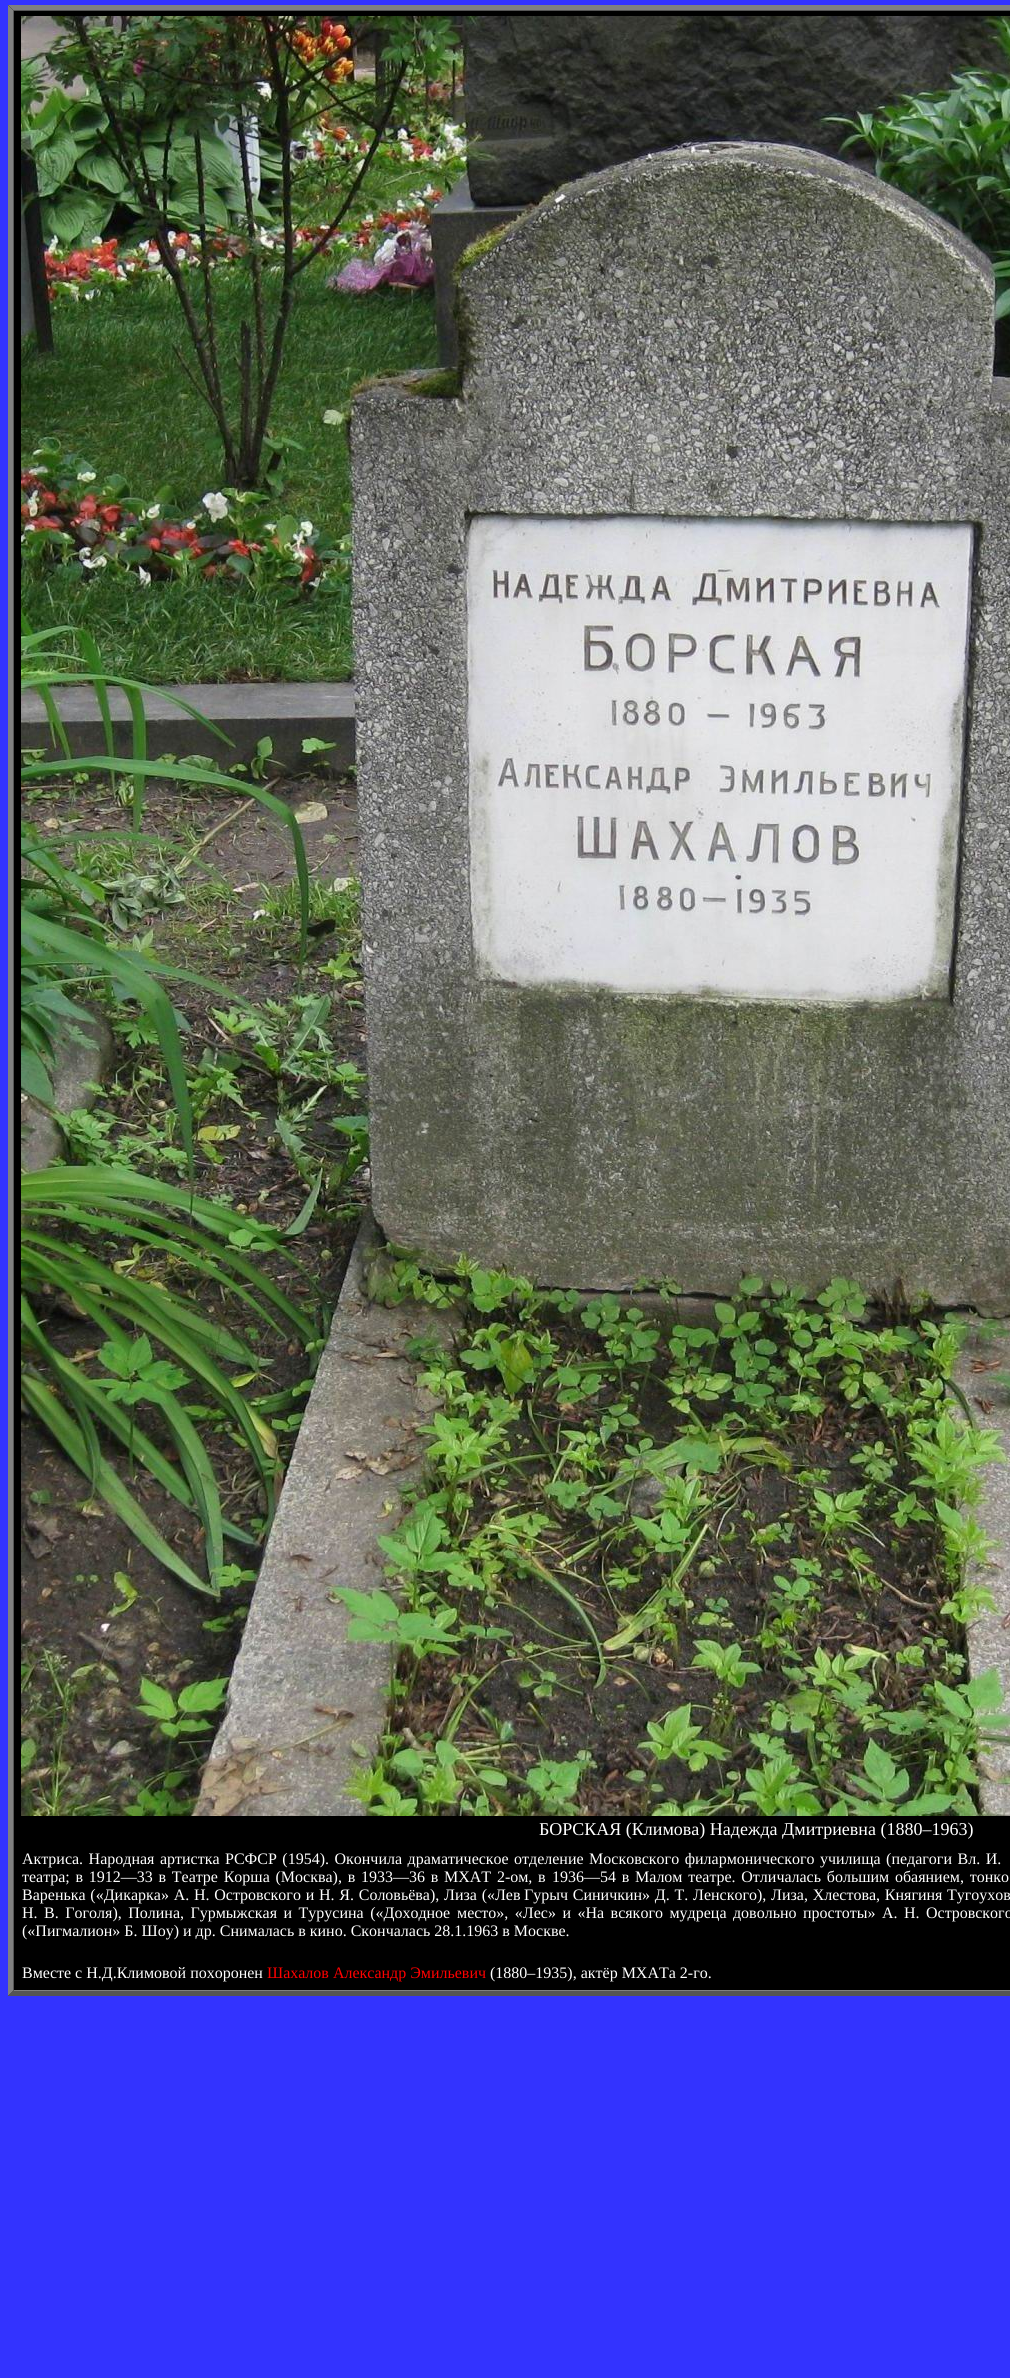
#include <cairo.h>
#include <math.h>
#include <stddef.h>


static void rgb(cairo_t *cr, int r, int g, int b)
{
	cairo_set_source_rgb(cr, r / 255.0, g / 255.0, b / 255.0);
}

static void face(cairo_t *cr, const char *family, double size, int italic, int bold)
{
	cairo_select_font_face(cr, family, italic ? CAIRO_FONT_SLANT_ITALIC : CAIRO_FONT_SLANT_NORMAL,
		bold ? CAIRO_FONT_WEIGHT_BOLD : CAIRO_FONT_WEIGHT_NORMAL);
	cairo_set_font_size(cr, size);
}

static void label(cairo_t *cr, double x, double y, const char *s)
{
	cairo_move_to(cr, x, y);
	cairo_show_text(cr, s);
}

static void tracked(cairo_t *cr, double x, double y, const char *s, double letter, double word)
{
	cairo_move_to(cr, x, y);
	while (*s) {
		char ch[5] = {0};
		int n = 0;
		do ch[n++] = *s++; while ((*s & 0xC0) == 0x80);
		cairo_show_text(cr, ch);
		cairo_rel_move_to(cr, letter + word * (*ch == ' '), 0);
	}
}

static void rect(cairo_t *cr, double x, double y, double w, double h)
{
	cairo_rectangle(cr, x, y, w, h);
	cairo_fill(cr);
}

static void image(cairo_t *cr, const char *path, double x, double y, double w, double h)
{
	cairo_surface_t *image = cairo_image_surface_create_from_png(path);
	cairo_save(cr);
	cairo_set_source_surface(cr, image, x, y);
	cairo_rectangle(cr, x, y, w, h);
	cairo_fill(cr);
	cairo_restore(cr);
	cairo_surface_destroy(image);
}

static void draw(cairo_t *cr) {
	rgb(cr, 51, 51, 255);
	cairo_paint(cr);
	rgb(cr, 0, 0, 0);
	rect(cr, 8, 5, 1002, 1991);
	rgb(cr, 128, 128, 128);
	cairo_new_path(cr);
	cairo_move_to(cr, 8, 5);
	cairo_line_to(cr, 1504, 5);
	cairo_line_to(cr, 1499, 10);
	cairo_line_to(cr, 13, 10);
	cairo_close_path(cr);
	cairo_fill(cr);
	rgb(cr, 85, 85, 85);
	cairo_new_path(cr);
	cairo_move_to(cr, 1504, 1996);
	cairo_line_to(cr, 8, 1996);
	cairo_line_to(cr, 13, 1991);
	cairo_line_to(cr, 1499, 1991);
	cairo_close_path(cr);
	cairo_fill(cr);
	rgb(cr, 128, 128, 128);
	cairo_new_path(cr);
	cairo_move_to(cr, 8, 1996);
	cairo_line_to(cr, 8, 5);
	cairo_line_to(cr, 13, 10);
	cairo_line_to(cr, 13, 1991);
	cairo_close_path(cr);
	cairo_fill(cr);
	rgb(cr, 85, 85, 85);
	rect(cr, 13, 10, 997, 1);
	rgb(cr, 128, 128, 128);
	rect(cr, 13, 1990, 997, 1);
	rgb(cr, 85, 85, 85);
	rect(cr, 13, 10, 1, 1981);
	image(cr, "image0.png", 21, 16, 989, 1800);
	face(cr, "Liberation Serif", 18, 0, 0);
	rgb(cr, 255, 255, 255);
	label(cr, 539, 1835, "БОРСКАЯ (Климова) Надежда Дмитриевна (1880–1963)");
	face(cr, "Liberation Serif", 16, 0, 0);
	tracked(cr, 22, 1864, "Актриса. Народная артистка РСФСР (1954). Окончила драматическое", 0, 1.5);
	tracked(cr, 514, 1864, "отделение Московского филармонического училища (педагоги Вл. И.", 0, 1.5);
	tracked(cr, 22, 1882, "театра; в 1912—33 в Театре Корша (Москва), в 1933—36 в МХАТ 2-ом, в", 0, 1.75);
	tracked(cr, 552, 1882, "1936—54 в Малом театре. Отличалась большим обаянием, тонко", 0, 1.75);
	tracked(cr, 22, 1900, "Варенька («Дикарка» А. Н. Островского и Н. Я. Соловьёва), Лиза («Лев", 0, 0.75);
	tracked(cr, 524, 1900, "Гурыч Синичкин» Д. Т. Ленского), Лиза, Хлестова, Княгиня", 0, 0.75);
	tracked(cr, 947, 1900, "Тугоухов", 0, 0.75);
	tracked(cr, 22, 1918, "Н. В. Гоголя), Полина, Гурмыжская и Турусина («Доходное", 0, 2.5);
	tracked(cr, 457, 1918, "место», «Лес» и «На всякого мудреца довольно простоты» А. Н.", 0, 2.5);
	tracked(cr, 926, 1918, "Островского", 0, 2.5);
	label(cr, 22, 1936, "(«Пигмалион» Б. Шоу) и др. Снималась в кино. Скончалась 28.1.1963 в Москве.");
	label(cr, 22, 1978, "Вместе с Н.Д.Климовой похоронен");
	rgb(cr, 255, 0, 0);
	label(cr, 267, 1978, "Шахалов Александр Эмильевич");
	rgb(cr, 255, 255, 255);
	label(cr, 490, 1978, "(1880–1935), актёр МХАТа 2-го.");
}

int main(void) {
	cairo_surface_t *surface = cairo_image_surface_create(CAIRO_FORMAT_RGB24, 1010, 2378);
	cairo_t *cr = cairo_create(surface);
	cairo_font_options_t *options = cairo_font_options_create();
	cairo_font_options_set_hint_metrics(options, CAIRO_HINT_METRICS_OFF);
	cairo_font_options_set_hint_style(options, CAIRO_HINT_STYLE_NONE);
	cairo_set_font_options(cr, options);
	cairo_set_miter_limit(cr, 4);
	draw(cr);
	cairo_surface_write_to_png(surface, "render.png");
	cairo_font_options_destroy(options);
	cairo_destroy(cr);
	cairo_surface_destroy(surface);
	return 0;
}
